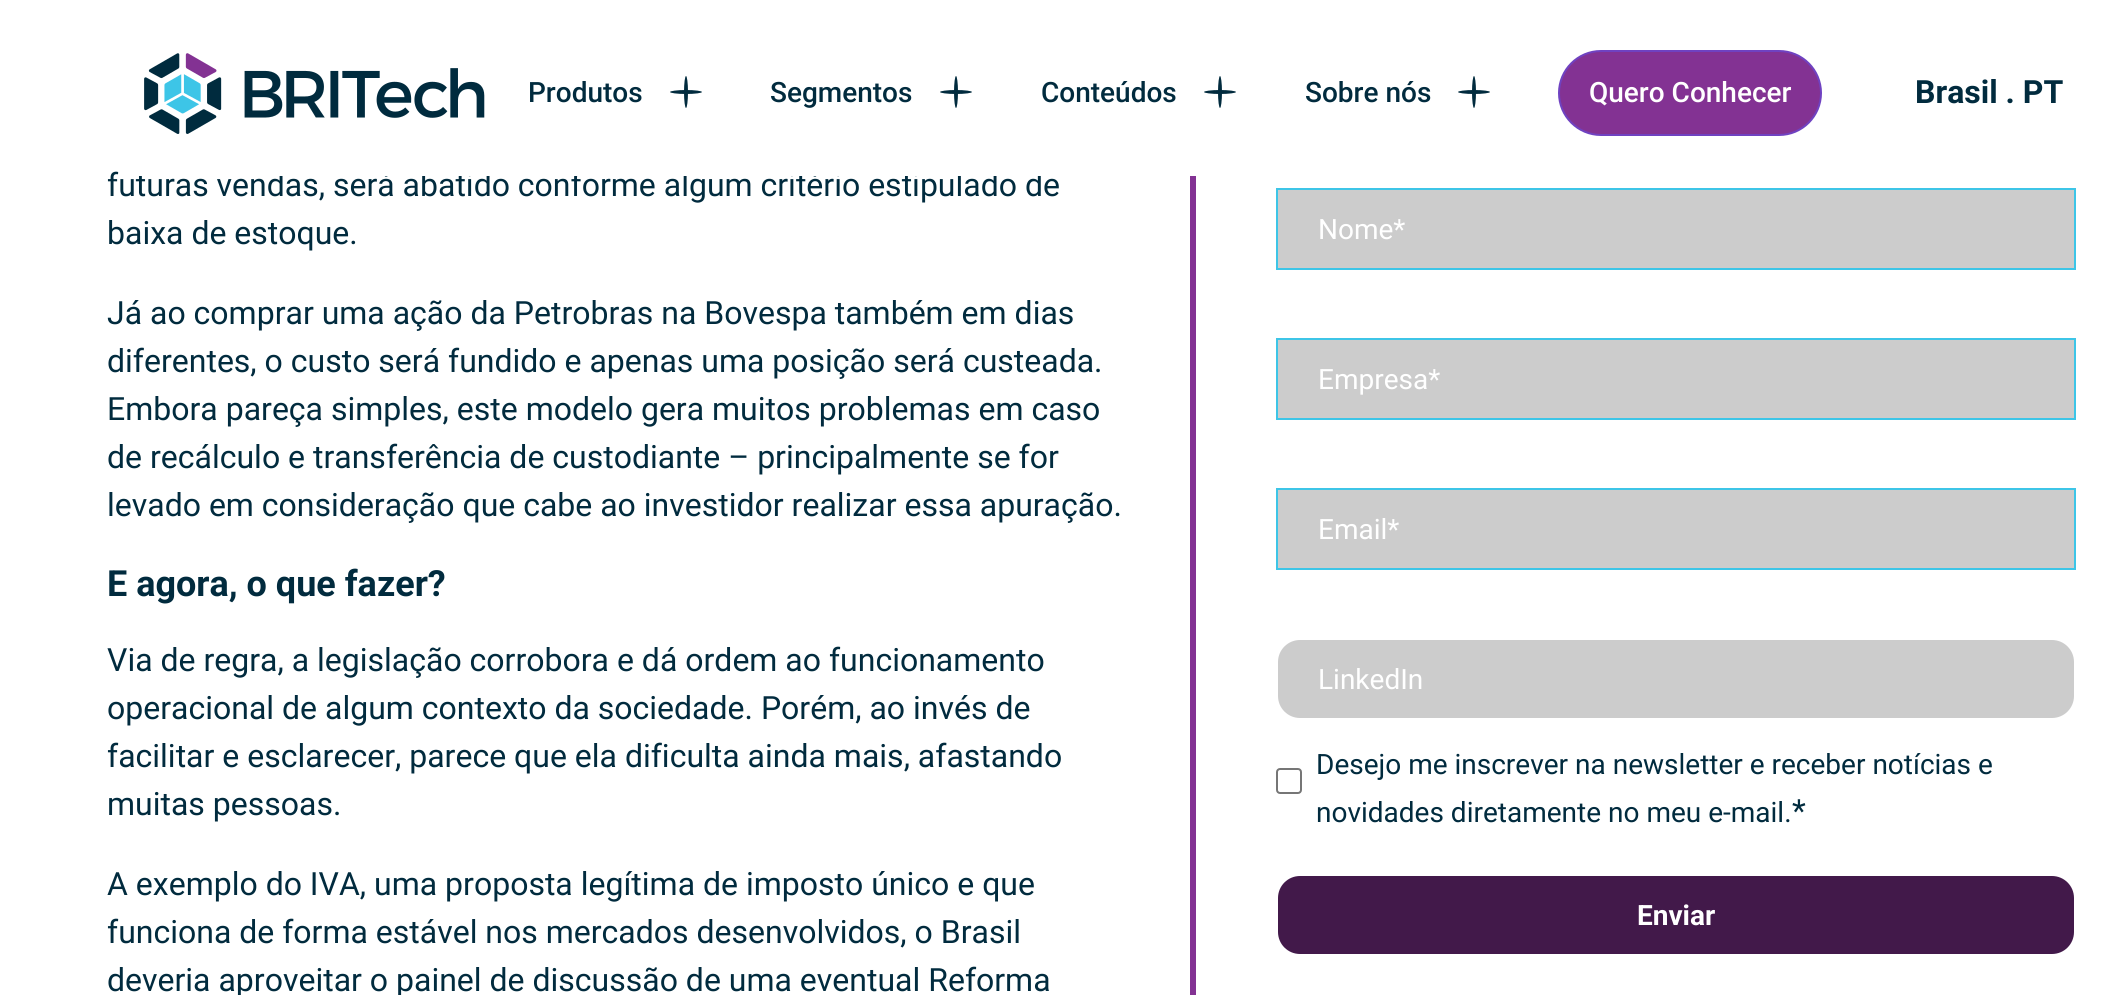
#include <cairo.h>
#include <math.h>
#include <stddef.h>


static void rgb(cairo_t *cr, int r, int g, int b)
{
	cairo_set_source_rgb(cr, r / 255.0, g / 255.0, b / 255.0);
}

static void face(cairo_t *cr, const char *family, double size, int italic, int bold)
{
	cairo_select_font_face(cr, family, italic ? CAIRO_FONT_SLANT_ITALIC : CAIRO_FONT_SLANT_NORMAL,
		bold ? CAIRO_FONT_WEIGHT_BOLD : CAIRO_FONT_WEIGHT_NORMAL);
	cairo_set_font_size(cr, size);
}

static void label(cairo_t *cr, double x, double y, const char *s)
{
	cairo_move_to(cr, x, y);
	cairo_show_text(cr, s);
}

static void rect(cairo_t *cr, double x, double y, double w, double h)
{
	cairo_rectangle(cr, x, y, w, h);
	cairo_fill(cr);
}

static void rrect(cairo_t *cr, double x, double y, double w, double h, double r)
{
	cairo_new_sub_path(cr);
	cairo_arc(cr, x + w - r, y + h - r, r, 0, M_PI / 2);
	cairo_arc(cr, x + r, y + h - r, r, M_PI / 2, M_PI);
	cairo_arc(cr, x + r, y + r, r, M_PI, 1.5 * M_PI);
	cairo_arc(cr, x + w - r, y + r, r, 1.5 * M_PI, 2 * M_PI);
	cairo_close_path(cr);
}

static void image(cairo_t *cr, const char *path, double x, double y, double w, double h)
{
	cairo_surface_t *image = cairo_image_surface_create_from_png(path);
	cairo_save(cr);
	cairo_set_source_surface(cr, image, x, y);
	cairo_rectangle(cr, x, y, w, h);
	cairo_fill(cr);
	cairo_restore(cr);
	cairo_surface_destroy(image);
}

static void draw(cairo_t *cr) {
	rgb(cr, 255, 255, 255);
	cairo_paint(cr);
	face(cr, "Roboto", 32, 0, 0);
	rgb(cr, 1, 43, 62);
	label(cr, 107, 196, "futuras vendas, será abatido conforme algum critério estipulado de");
	rgb(cr, 255, 255, 255);
	cairo_new_path(cr);
	cairo_move_to(cr, 108, 0);
	cairo_line_to(cr, 1996, 0);
	cairo_line_to(cr, 1996, 152);
	cairo_curve_to(cr, 1996, 165.5, 1985.5, 176, 1972, 176);
	cairo_line_to(cr, 132, 176);
	cairo_curve_to(cr, 118.5, 176, 108, 165.5, 108, 152);
	cairo_close_path(cr);
	cairo_fill(cr);
	image(cr, "image0.png", 144, 53, 341, 81);
	face(cr, "Roboto Medium", 28, 0, 0);
	rgb(cr, 1, 43, 62);
	label(cr, 528, 102, "Produtos");
	cairo_new_path(cr);
	cairo_move_to(cr, 686, 76);
	cairo_curve_to(cr, 687, 76, 688, 83, 688, 92);
	cairo_curve_to(cr, 688, 101, 687, 108, 686, 108);
	cairo_curve_to(cr, 685, 108, 684, 101, 684, 92);
	cairo_curve_to(cr, 684, 83, 685, 76, 686, 76);
	cairo_close_path(cr);
	cairo_fill(cr);
	cairo_new_path(cr);
	cairo_move_to(cr, 686, 90);
	cairo_curve_to(cr, 695, 90, 702, 91, 702, 92);
	cairo_curve_to(cr, 702, 93, 695, 94, 686, 94);
	cairo_curve_to(cr, 677, 94, 670, 93, 670, 92);
	cairo_curve_to(cr, 670, 91, 677, 90, 686, 90);
	cairo_close_path(cr);
	cairo_fill(cr);
	label(cr, 770, 102, "Segmentos");
	cairo_new_path(cr);
	cairo_move_to(cr, 956, 76);
	cairo_curve_to(cr, 957, 76, 958, 83, 958, 92);
	cairo_curve_to(cr, 958, 101, 957, 108, 956, 108);
	cairo_curve_to(cr, 955, 108, 954, 101, 954, 92);
	cairo_curve_to(cr, 954, 83, 955, 76, 956, 76);
	cairo_close_path(cr);
	cairo_fill(cr);
	cairo_new_path(cr);
	cairo_move_to(cr, 956, 90);
	cairo_curve_to(cr, 965, 90, 972, 91, 972, 92);
	cairo_curve_to(cr, 972, 93, 965, 94, 956, 94);
	cairo_curve_to(cr, 947, 94, 940, 93, 940, 92);
	cairo_curve_to(cr, 940, 91, 947, 90, 956, 90);
	cairo_close_path(cr);
	cairo_fill(cr);
	label(cr, 1041, 102, "Conteúdos");
	cairo_new_path(cr);
	cairo_move_to(cr, 1220, 76);
	cairo_curve_to(cr, 1221, 76, 1222, 83, 1222, 92);
	cairo_curve_to(cr, 1222, 101, 1221, 108, 1220, 108);
	cairo_curve_to(cr, 1219, 108, 1218, 101, 1218, 92);
	cairo_curve_to(cr, 1218, 83, 1219, 76, 1220, 76);
	cairo_close_path(cr);
	cairo_fill(cr);
	cairo_new_path(cr);
	cairo_move_to(cr, 1220, 90);
	cairo_curve_to(cr, 1229, 90, 1236, 91, 1236, 92);
	cairo_curve_to(cr, 1236, 93, 1229, 94, 1220, 94);
	cairo_curve_to(cr, 1211, 94, 1204, 93, 1204, 92);
	cairo_curve_to(cr, 1204, 91, 1211, 90, 1220, 90);
	cairo_close_path(cr);
	cairo_fill(cr);
	label(cr, 1305, 102, "Sobre nós");
	cairo_new_path(cr);
	cairo_move_to(cr, 1474, 76);
	cairo_curve_to(cr, 1475, 76, 1476, 83, 1476, 92);
	cairo_curve_to(cr, 1476, 101, 1475, 108, 1474, 108);
	cairo_curve_to(cr, 1473, 108, 1472, 101, 1472, 92);
	cairo_curve_to(cr, 1472, 83, 1473, 76, 1474, 76);
	cairo_close_path(cr);
	cairo_fill(cr);
	cairo_new_path(cr);
	cairo_move_to(cr, 1474, 90);
	cairo_curve_to(cr, 1483, 90, 1490, 91, 1490, 92);
	cairo_curve_to(cr, 1490, 93, 1483, 94, 1474, 94);
	cairo_curve_to(cr, 1465, 94, 1458, 93, 1458, 92);
	cairo_curve_to(cr, 1458, 91, 1465, 90, 1474, 90);
	cairo_close_path(cr);
	cairo_fill(cr);
	rgb(cr, 131, 50, 147);
	rrect(cr, 1559, 51, 262, 84, 42);
	cairo_fill_preserve(cr);
	rgb(cr, 111, 66, 193);
	cairo_stroke(cr);
	rgb(cr, 255, 255, 255);
	label(cr, 1589, 102, "Quero Conhecer");
	face(cr, "Roboto", 32, 0, 1);
	rgb(cr, 1, 43, 62);
	label(cr, 1915, 103, "Brasil . PT");
	rgb(cr, 131, 50, 147);
	rect(cr, 1190, 176, 6, 819);
	face(cr, "Roboto", 32, 0, 0);
	rgb(cr, 1, 43, 62);
	label(cr, 107, 244, "baixa de estoque.");
	label(cr, 107, 324, "Já ao comprar uma ação da Petrobras na Bovespa também em dias");
	label(cr, 107, 372, "diferentes, o custo será fundido e apenas uma posição será custeada.");
	label(cr, 107, 420, "Embora pareça simples, este modelo gera muitos problemas em caso");
	label(cr, 107, 468, "de recálculo e transferência de custodiante – principalmente se for");
	label(cr, 107, 516, "levado em consideração que cabe ao investidor realizar essa apuração.");
	face(cr, "Roboto", 36, 0, 1);
	label(cr, 107, 596, "E agora, o que fazer?");
	face(cr, "Roboto", 32, 0, 0);
	label(cr, 107, 671, "Via de regra, a legislação corrobora e dá ordem ao funcionamento");
	label(cr, 107, 719, "operacional de algum contexto da sociedade. Porém, ao invés de");
	label(cr, 107, 767, "facilitar e esclarecer, parece que ela dificulta ainda mais, afastando");
	label(cr, 107, 815, "muitas pessoas.");
	label(cr, 107, 895, "A exemplo do IVA, uma proposta legítima de imposto único e que");
	label(cr, 107, 943, "funciona de forma estável nos mercados desenvolvidos, o Brasil");
	label(cr, 107, 991, "deveria aproveitar o painel de discussão de uma eventual Reforma");
	rgb(cr, 204, 204, 204);
	cairo_rectangle(cr, 1277, 189, 798, 80);
	cairo_fill_preserve(cr);
	rgb(cr, 61, 197, 231);
	cairo_stroke(cr);
	face(cr, "Roboto", 28, 0, 0);
	rgb(cr, 255, 255, 255);
	label(cr, 1318, 239, "Nome*");
	rgb(cr, 204, 204, 204);
	cairo_rectangle(cr, 1277, 339, 798, 80);
	cairo_fill_preserve(cr);
	rgb(cr, 61, 197, 231);
	cairo_stroke(cr);
	rgb(cr, 255, 255, 255);
	label(cr, 1318, 389, "Empresa*");
	rgb(cr, 204, 204, 204);
	cairo_rectangle(cr, 1277, 489, 798, 80);
	cairo_fill_preserve(cr);
	rgb(cr, 61, 197, 231);
	cairo_stroke(cr);
	rgb(cr, 255, 255, 255);
	label(cr, 1318, 539, "Email*");
	rgb(cr, 204, 204, 204);
	rrect(cr, 1277, 639, 798, 80, 23);
	cairo_fill_preserve(cr);
	rgb(cr, 255, 255, 255);
	cairo_stroke(cr);
	label(cr, 1318, 689, "LinkedIn");
	rrect(cr, 1277, 769, 24, 24, 3);
	rgb(cr, 118, 118, 118);
	cairo_stroke(cr);
	rgb(cr, 1, 43, 62);
	label(cr, 1316, 774, "Desejo me inscrever na newsletter e receber notícias e");
	label(cr, 1316, 822, "novidades diretamente no meu e-mail.");
	face(cr, "Roboto", 32, 0, 0);
	label(cr, 1792, 822, "*");
	rgb(cr, 66, 25, 74);
	rrect(cr, 1277, 875, 798, 80, 23);
	cairo_fill_preserve(cr);
	rgb(cr, 255, 255, 255);
	cairo_stroke(cr);
	face(cr, "Roboto", 28, 0, 1);
	label(cr, 1637, 925, "Enviar");
}

int main(void) {
	cairo_surface_t *surface = cairo_image_surface_create(CAIRO_FORMAT_RGB24, 2104, 995);
	cairo_t *cr = cairo_create(surface);
	cairo_font_options_t *options = cairo_font_options_create();
	cairo_font_options_set_hint_metrics(options, CAIRO_HINT_METRICS_OFF);
	cairo_font_options_set_hint_style(options, CAIRO_HINT_STYLE_NONE);
	cairo_set_font_options(cr, options);
	cairo_set_miter_limit(cr, 4);
	draw(cr);
	cairo_surface_write_to_png(surface, "render.png");
	cairo_font_options_destroy(options);
	cairo_destroy(cr);
	cairo_surface_destroy(surface);
	return 0;
}
